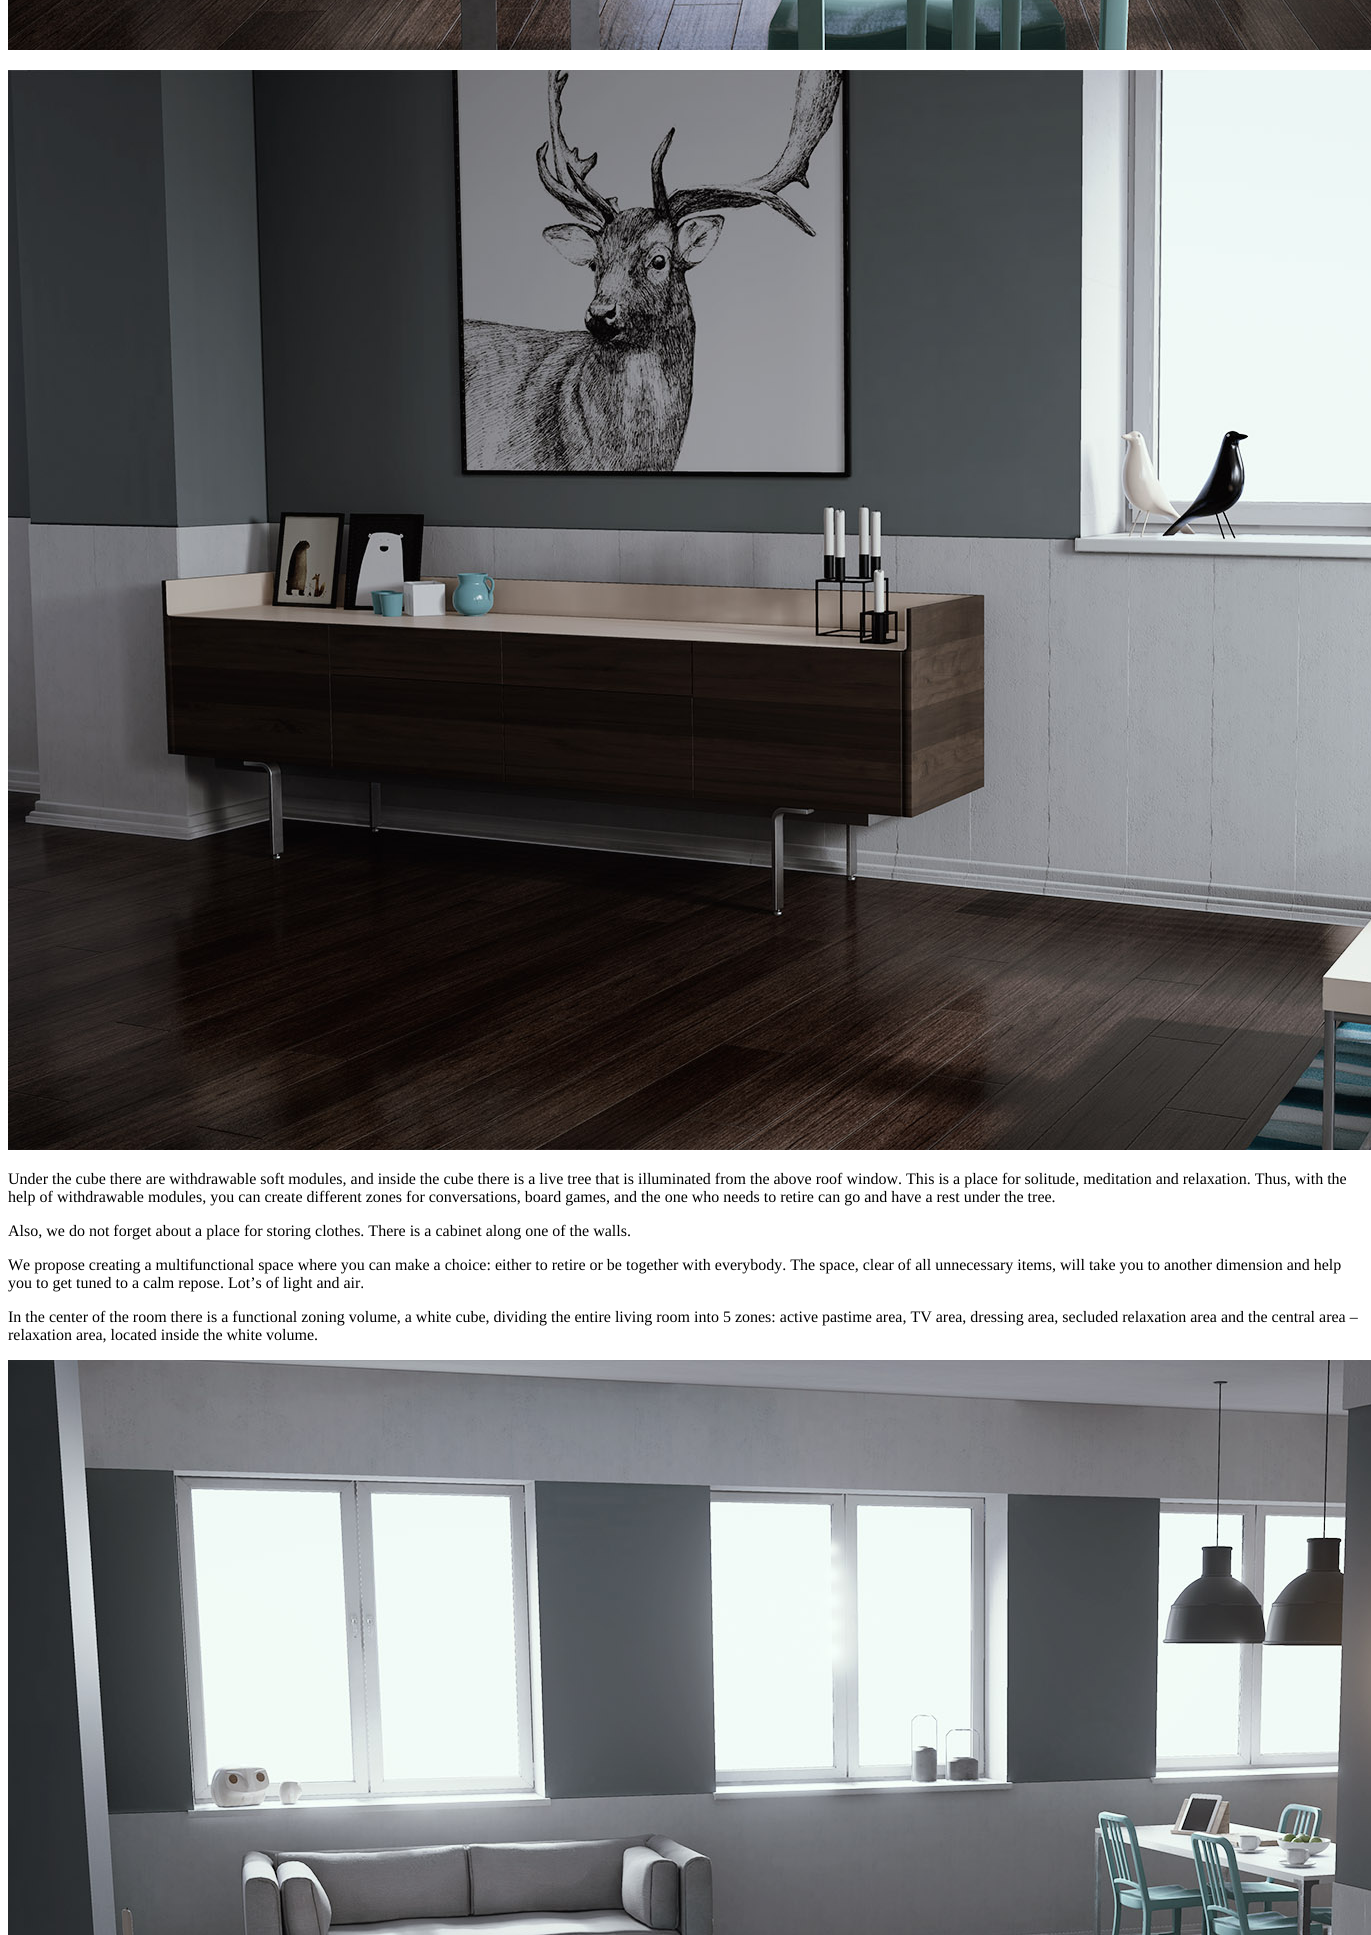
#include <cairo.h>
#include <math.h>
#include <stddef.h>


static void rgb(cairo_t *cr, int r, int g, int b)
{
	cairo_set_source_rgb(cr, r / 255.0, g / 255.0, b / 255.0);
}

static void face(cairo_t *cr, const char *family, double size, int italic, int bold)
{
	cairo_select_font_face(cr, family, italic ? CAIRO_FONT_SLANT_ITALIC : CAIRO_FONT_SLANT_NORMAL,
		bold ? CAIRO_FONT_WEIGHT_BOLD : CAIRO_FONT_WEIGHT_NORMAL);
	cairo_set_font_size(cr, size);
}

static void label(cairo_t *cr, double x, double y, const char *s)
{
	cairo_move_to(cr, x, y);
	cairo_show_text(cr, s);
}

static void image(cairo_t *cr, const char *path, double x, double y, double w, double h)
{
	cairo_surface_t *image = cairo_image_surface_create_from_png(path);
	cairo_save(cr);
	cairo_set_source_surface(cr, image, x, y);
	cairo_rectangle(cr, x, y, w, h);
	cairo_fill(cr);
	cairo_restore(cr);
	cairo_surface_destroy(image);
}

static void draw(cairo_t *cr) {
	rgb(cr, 255, 255, 255);
	cairo_paint(cr);
	image(cr, "image0.png", 8, 0, 1363, 50);
	image(cr, "image1.png", 8, 70, 1363, 1080);
	face(cr, "Liberation Serif", 16, 0, 0);
	rgb(cr, 0, 0, 0);
	label(cr, 8, 1184, "Under the cube there are withdrawable soft modules, and inside the cube there is a live tree that is illuminated from the above roof window. This is a place for solitude, meditation and relaxation. Thus, with the");
	label(cr, 8, 1202, "help of withdrawable modules, you can create different zones for conversations, board games, and the one who needs to retire can go and have a rest under the tree.");
	label(cr, 8, 1236, "Also, we do not forget about a place for storing clothes. There is a cabinet along one of the walls.");
	label(cr, 8, 1270, "We propose creating a multifunctional space where you can make a choice: either to retire or be together with everybody. The space, clear of all unnecessary items, will take you to another dimension and help");
	label(cr, 8, 1288, "you to get tuned to a calm repose. Lot’s of light and air.");
	label(cr, 8, 1322, "In the center of the room there is a functional zoning volume, a white cube, dividing the entire living room into 5 zones: active pastime area, TV area, dressing area, secluded relaxation area and the central area –");
	label(cr, 8, 1340, "relaxation area, located inside the white volume.");
	image(cr, "image2.png", 8, 1360, 1363, 575);
}

int main(void) {
	cairo_surface_t *surface = cairo_image_surface_create(CAIRO_FORMAT_RGB24, 1371, 1935);
	cairo_t *cr = cairo_create(surface);
	cairo_font_options_t *options = cairo_font_options_create();
	cairo_font_options_set_hint_metrics(options, CAIRO_HINT_METRICS_OFF);
	cairo_font_options_set_hint_style(options, CAIRO_HINT_STYLE_NONE);
	cairo_set_font_options(cr, options);
	cairo_set_miter_limit(cr, 4);
	draw(cr);
	cairo_surface_write_to_png(surface, "render.png");
	cairo_font_options_destroy(options);
	cairo_destroy(cr);
	cairo_surface_destroy(surface);
	return 0;
}
